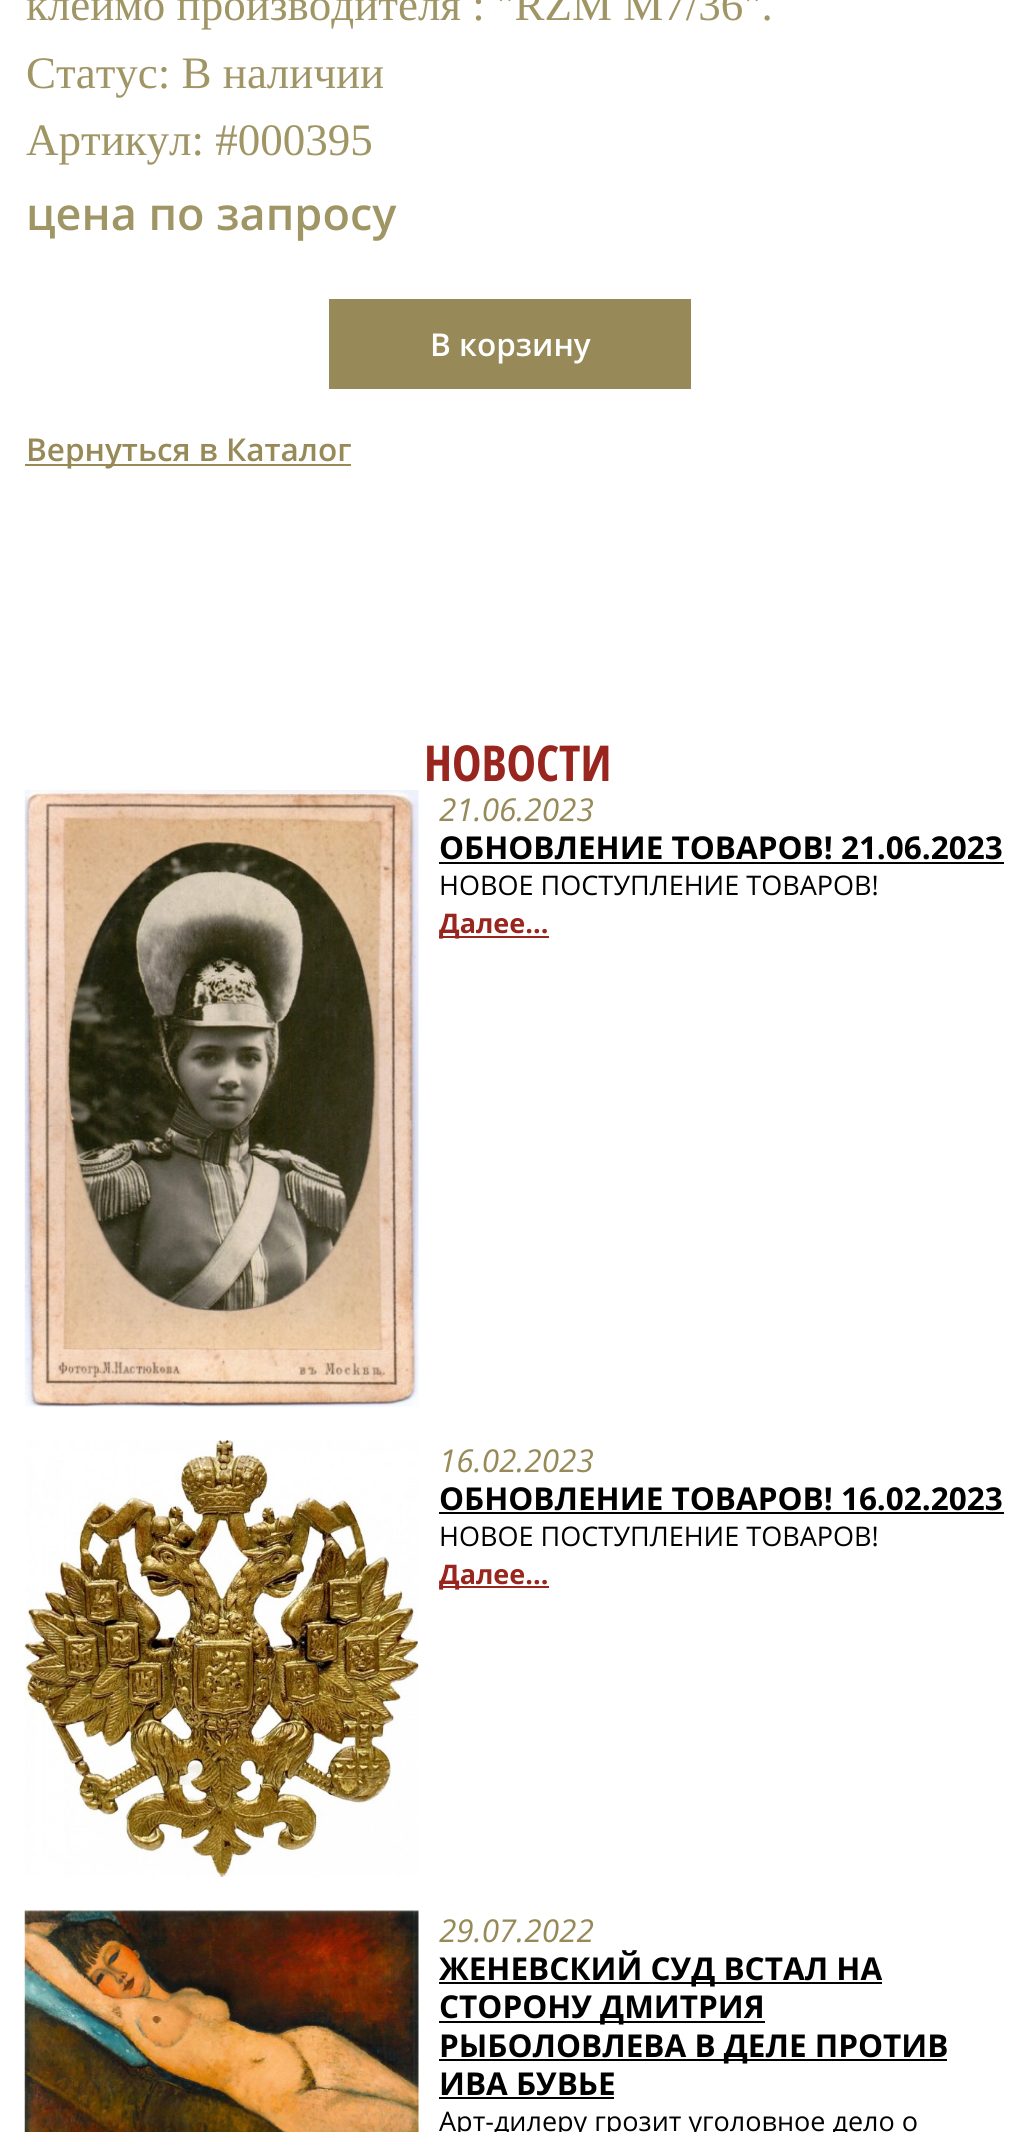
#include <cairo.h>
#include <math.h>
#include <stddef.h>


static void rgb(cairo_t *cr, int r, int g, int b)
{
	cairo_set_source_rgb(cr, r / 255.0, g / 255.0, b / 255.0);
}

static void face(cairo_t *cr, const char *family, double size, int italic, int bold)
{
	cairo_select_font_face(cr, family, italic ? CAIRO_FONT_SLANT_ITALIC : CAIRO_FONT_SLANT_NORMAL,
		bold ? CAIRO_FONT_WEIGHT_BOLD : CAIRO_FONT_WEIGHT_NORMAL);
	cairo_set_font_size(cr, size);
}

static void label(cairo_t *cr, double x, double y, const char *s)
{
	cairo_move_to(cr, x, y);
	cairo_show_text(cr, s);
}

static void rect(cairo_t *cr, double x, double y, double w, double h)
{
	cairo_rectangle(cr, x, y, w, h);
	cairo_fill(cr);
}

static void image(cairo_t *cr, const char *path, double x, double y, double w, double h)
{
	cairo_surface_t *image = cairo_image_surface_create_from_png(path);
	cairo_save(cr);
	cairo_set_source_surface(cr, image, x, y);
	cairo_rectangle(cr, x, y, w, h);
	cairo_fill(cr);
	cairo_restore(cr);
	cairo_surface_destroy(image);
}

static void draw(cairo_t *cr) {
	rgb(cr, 255, 255, 255);
	cairo_paint(cr);
	face(cr, "Liberation Serif", 45, 0, 0);
	rgb(cr, 160, 149, 100);
	label(cr, 26, 20, "клеймо производителя : \"RZM M7/36\".");
	label(cr, 26, 88, "Статус: В наличии");
	label(cr, 26, 155, "Артикул: #000395");
	face(cr, "Open Sans SemiBold", 45, 0, 0);
	label(cr, 26, 230, "цена по запросу");
	rgb(cr, 151, 138, 88);
	rect(cr, 329, 299, 362, 90);
	face(cr, "Open Sans SemiBold", 31.5, 0, 0);
	rgb(cr, 255, 255, 255);
	label(cr, 430, 356, "В корзину");
	rgb(cr, 151, 138, 88);
	rect(cr, 25, 464, 326, 2);
	label(cr, 26, 461, "Вернуться в Каталог");
	face(cr, "Open Sans Condensed", 49.5, 0, 1);
	rgb(cr, 153, 38, 30);
	label(cr, 424, 781, "НОВОСТИ");
	image(cr, "image0.png", 24, 790, 395, 617);
	face(cr, "Open Sans", 31.5, 1, 0);
	rgb(cr, 151, 138, 88);
	label(cr, 439, 821, "21.06.2023");
	face(cr, "Open Sans", 31.5, 0, 1);
	rgb(cr, 0, 0, 0);
	label(cr, 439, 859, "ОБНОВЛЕНИЕ ТОВАРОВ! 21.06.2023");
	rect(cr, 439, 862, 565, 2);
	face(cr, "Open Sans", 27, 0, 0);
	label(cr, 439, 895, "НОВОЕ ПОСТУПЛЕНИЕ ТОВАРОВ!");
	rgb(cr, 153, 38, 30);
	rect(cr, 439, 936, 110, 2);
	face(cr, "Open Sans", 27, 0, 1);
	label(cr, 439, 933, "Далее...");
	image(cr, "image1.png", 24, 1440, 395, 437);
	face(cr, "Open Sans", 31.5, 1, 0);
	rgb(cr, 151, 138, 88);
	label(cr, 439, 1472, "16.02.2023");
	face(cr, "Open Sans", 31.5, 0, 1);
	rgb(cr, 0, 0, 0);
	label(cr, 439, 1510, "ОБНОВЛЕНИЕ ТОВАРОВ! 16.02.2023");
	rect(cr, 439, 1512, 565, 2);
	face(cr, "Open Sans", 27, 0, 0);
	label(cr, 439, 1546, "НОВОЕ ПОСТУПЛЕНИЕ ТОВАРОВ!");
	rgb(cr, 153, 38, 30);
	rect(cr, 439, 1586, 110, 2);
	face(cr, "Open Sans", 27, 0, 1);
	label(cr, 439, 1584, "Далее...");
	image(cr, "image2.png", 24, 1910, 395, 222);
	face(cr, "Open Sans", 31.5, 1, 0);
	rgb(cr, 151, 138, 88);
	label(cr, 439, 1942, "29.07.2022");
	rgb(cr, 0, 0, 0);
	rect(cr, 439, 1982, 443, 2);
	face(cr, "Open Sans", 31.5, 0, 1);
	label(cr, 439, 1980, "ЖЕНЕВСКИЙ СУД ВСТАЛ НА");
	rect(cr, 439, 2021, 326, 2);
	label(cr, 439, 2018, "СТОРОНУ ДМИТРИЯ");
	rect(cr, 439, 2059, 508, 2);
	label(cr, 439, 2057, "РЫБОЛОВЛЕВА В ДЕЛЕ ПРОТИВ");
	label(cr, 439, 2095, "ИВА БУВЬЕ");
	rect(cr, 439, 2097, 175, 2);
	face(cr, "Open Sans", 27, 0, 0);
	label(cr, 439, 2131, "Арт-дилеру грозит уголовное дело о");
}

int main(void) {
	cairo_surface_t *surface = cairo_image_surface_create(CAIRO_FORMAT_RGB24, 1029, 2132);
	cairo_t *cr = cairo_create(surface);
	cairo_font_options_t *options = cairo_font_options_create();
	cairo_font_options_set_hint_metrics(options, CAIRO_HINT_METRICS_OFF);
	cairo_font_options_set_hint_style(options, CAIRO_HINT_STYLE_NONE);
	cairo_set_font_options(cr, options);
	cairo_set_miter_limit(cr, 4);
	draw(cr);
	cairo_surface_write_to_png(surface, "render.png");
	cairo_font_options_destroy(options);
	cairo_destroy(cr);
	cairo_surface_destroy(surface);
	return 0;
}
